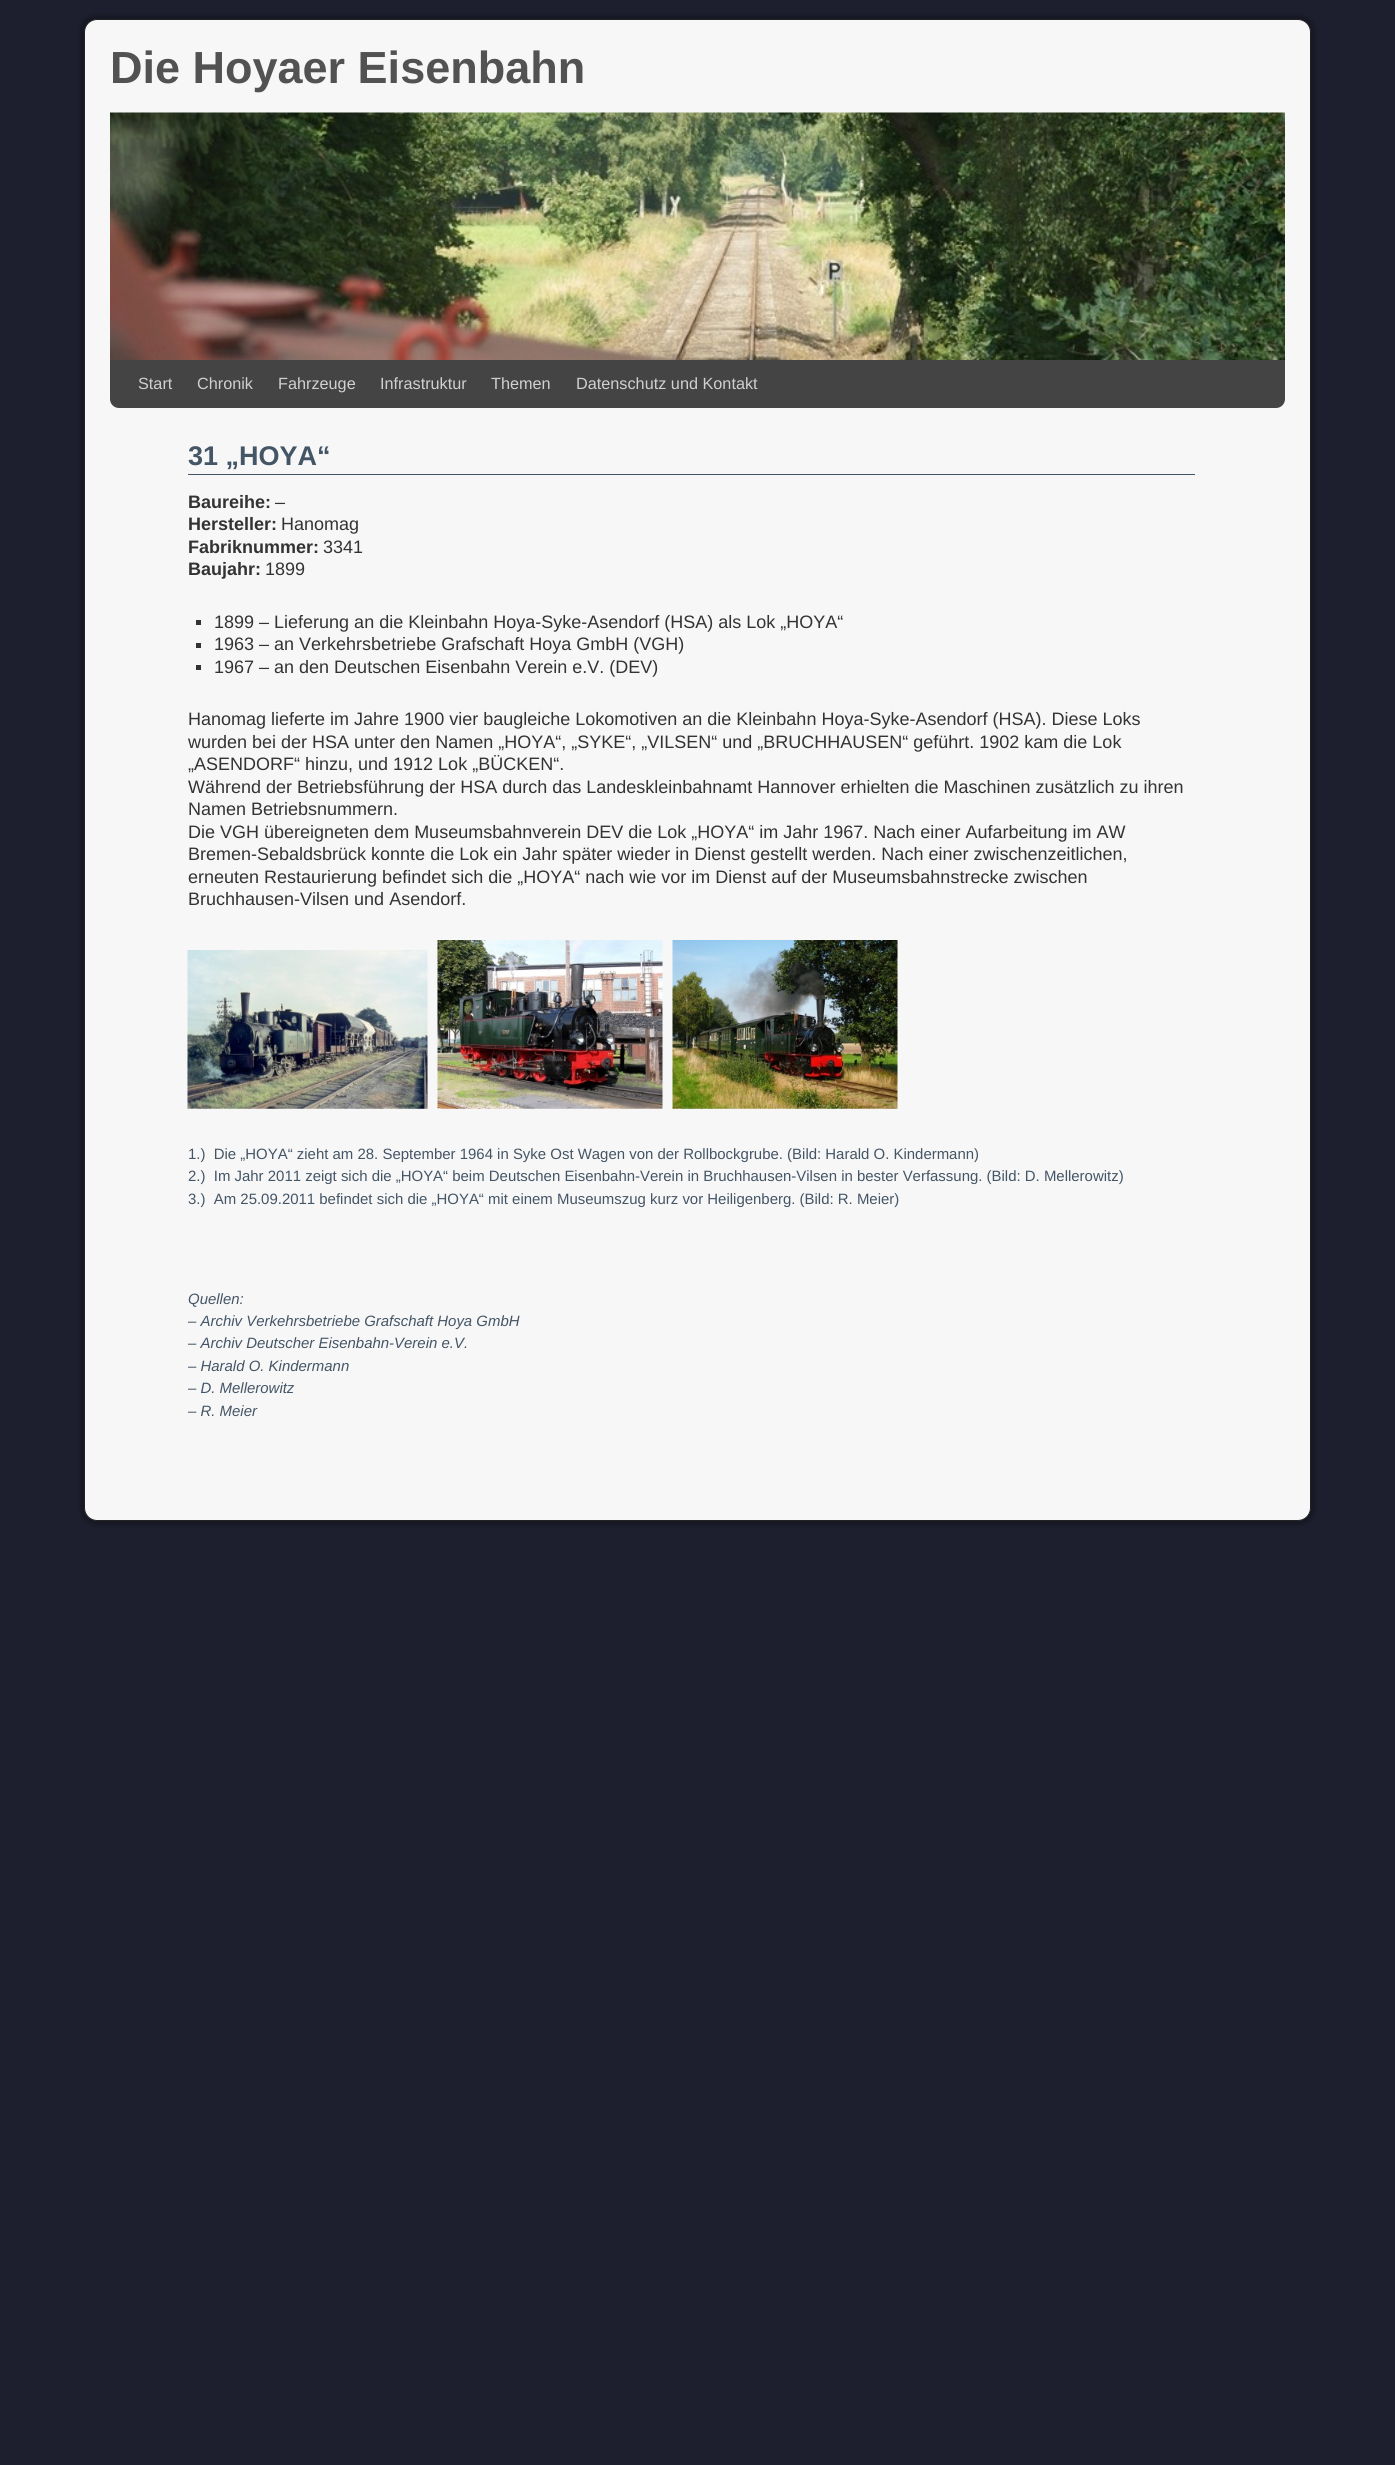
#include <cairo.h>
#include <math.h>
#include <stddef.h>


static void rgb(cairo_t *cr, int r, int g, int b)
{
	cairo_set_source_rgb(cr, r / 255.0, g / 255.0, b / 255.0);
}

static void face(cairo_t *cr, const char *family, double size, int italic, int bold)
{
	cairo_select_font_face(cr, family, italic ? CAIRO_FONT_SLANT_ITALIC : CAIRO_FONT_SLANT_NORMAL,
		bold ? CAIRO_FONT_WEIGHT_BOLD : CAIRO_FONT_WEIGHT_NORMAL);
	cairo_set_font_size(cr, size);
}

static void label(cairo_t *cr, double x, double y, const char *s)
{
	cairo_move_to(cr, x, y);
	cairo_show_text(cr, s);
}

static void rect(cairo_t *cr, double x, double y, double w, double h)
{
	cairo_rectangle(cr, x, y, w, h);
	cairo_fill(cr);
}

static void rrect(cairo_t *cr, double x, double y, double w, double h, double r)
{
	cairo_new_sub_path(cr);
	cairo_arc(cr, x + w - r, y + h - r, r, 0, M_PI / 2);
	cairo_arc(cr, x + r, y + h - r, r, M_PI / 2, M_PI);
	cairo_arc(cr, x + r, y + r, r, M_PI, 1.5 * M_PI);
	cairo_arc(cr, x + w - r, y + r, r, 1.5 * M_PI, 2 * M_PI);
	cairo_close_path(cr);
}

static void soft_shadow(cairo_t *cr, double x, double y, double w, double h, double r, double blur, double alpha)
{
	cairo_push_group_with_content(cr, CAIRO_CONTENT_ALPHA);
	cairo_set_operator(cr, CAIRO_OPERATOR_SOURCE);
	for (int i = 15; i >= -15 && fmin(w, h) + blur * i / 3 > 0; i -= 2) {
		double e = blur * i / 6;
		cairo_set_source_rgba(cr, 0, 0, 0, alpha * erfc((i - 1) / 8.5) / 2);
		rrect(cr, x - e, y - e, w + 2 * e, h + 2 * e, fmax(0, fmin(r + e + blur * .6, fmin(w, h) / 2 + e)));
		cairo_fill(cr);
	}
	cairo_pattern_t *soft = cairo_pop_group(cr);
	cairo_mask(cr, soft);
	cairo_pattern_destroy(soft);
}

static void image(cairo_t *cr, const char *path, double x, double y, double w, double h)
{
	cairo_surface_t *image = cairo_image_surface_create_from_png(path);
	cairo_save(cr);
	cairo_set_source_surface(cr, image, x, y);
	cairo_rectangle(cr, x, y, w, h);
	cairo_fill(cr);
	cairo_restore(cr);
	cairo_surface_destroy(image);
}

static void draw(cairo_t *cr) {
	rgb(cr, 29, 31, 46);
	cairo_paint(cr);
	rgb(cr, 0, 0, 0);
	soft_shadow(cr, 80, 15, 1235, 1510, 16, 2, 0.25);
	rgb(cr, 247, 247, 247);
	rrect(cr, 84.5, 19.5, 1226, 1501, 12.5);
	cairo_fill_preserve(cr);
	rgb(cr, 34, 34, 34);
	cairo_set_line_width(cr, 1);
	cairo_stroke(cr);
	face(cr, "Liberation Sans", 45, 0, 1);
	rgb(cr, 82, 82, 82);
	label(cr, 110, 83, "Die Hoyaer Eisenbahn");
	image(cr, "image0.png", 110, 112, 1175, 248);
	rgb(cr, 68, 68, 68);
	cairo_new_path(cr);
	cairo_move_to(cr, 110, 360);
	cairo_line_to(cr, 1285, 360);
	cairo_line_to(cr, 1285, 399);
	cairo_curve_to(cr, 1285, 404, 1281, 408, 1276, 408);
	cairo_line_to(cr, 119, 408);
	cairo_curve_to(cr, 114, 408, 110, 404, 110, 399);
	cairo_close_path(cr);
	cairo_fill(cr);
	face(cr, "Liberation Sans", 16.25, 0, 0);
	rgb(cr, 208, 208, 208);
	label(cr, 138, 389, "Start");
	label(cr, 197, 389, "Chronik");
	label(cr, 278, 389, "Fahrzeuge");
	label(cr, 380, 389, "Infrastruktur");
	label(cr, 491, 389, "Themen");
	label(cr, 576, 389, "Datenschutz und Kontakt");
	rgb(cr, 68, 85, 102);
	rect(cr, 188, 474, 1007, 1);
	face(cr, "Liberation Sans", 27, 0, 1);
	label(cr, 188, 465, "31 „HOYA“");
	face(cr, "Liberation Sans", 18, 0, 1);
	rgb(cr, 51, 51, 51);
	label(cr, 188, 508, "Baureihe:");
	face(cr, "Liberation Sans", 18, 0, 0);
	label(cr, 275, 508, "–");
	face(cr, "Liberation Sans", 18, 0, 1);
	label(cr, 188, 530, "Hersteller:");
	face(cr, "Liberation Sans", 18, 0, 0);
	label(cr, 281, 530, "Hanomag");
	face(cr, "Liberation Sans", 18, 0, 1);
	label(cr, 188, 553, "Fabriknummer:");
	face(cr, "Liberation Sans", 18, 0, 0);
	label(cr, 323, 553, "3341");
	face(cr, "Liberation Sans", 18, 0, 1);
	label(cr, 188, 575, "Baujahr:");
	face(cr, "Liberation Sans", 18, 0, 0);
	label(cr, 265, 575, "1899");
	rect(cr, 196, 620, 5, 5);
	label(cr, 214, 628, "1899 – Lieferung an die Kleinbahn Hoya-Syke-Asendorf (HSA) als Lok „HOYA“");
	rect(cr, 196, 643, 5, 5);
	label(cr, 214, 650, "1963 – an Verkehrsbetriebe Grafschaft Hoya GmbH (VGH)");
	rect(cr, 196, 665, 5, 5);
	label(cr, 214, 673, "1967 – an den Deutschen Eisenbahn Verein e.V. (DEV)");
	label(cr, 188, 725, "Hanomag lieferte im Jahre 1900 vier baugleiche Lokomotiven an die Kleinbahn Hoya-Syke-Asendorf (HSA). Diese Loks");
	label(cr, 188, 748, "wurden bei der HSA unter den Namen „HOYA“, „SYKE“, „VILSEN“ und „BRUCHHAUSEN“ geführt. 1902 kam die Lok");
	label(cr, 188, 770, "„ASENDORF“ hinzu, und 1912 Lok „BÜCKEN“.");
	label(cr, 188, 793, "Während der Betriebsführung der HSA durch das Landeskleinbahnamt Hannover erhielten die Maschinen zusätzlich zu ihren");
	label(cr, 188, 815, "Namen Betriebsnummern.");
	label(cr, 188, 838, "Die VGH übereigneten dem Museumsbahnverein DEV die Lok „HOYA“ im Jahr 1967. Nach einer Aufarbeitung im AW");
	label(cr, 188, 860, "Bremen-Sebaldsbrück konnte die Lok ein Jahr später wieder in Dienst gestellt werden. Nach einer zwischenzeitlichen,");
	label(cr, 188, 883, "erneuten Restaurierung befindet sich die „HOYA“ nach wie vor im Dienst auf der Museumsbahnstrecke zwischen");
	label(cr, 188, 905, "Bruchhausen-Vilsen und Asendorf.");
	image(cr, "image1.png", 187, 950, 241, 159);
	image(cr, "image2.png", 437, 940, 226, 169);
	image(cr, "image3.png", 672, 940, 226, 169);
	face(cr, "Liberation Sans", 14.95, 0, 0);
	rgb(cr, 68, 85, 102);
	label(cr, 188, 1159, "1.)  Die „HOYA“ zieht am 28. September 1964 in Syke Ost Wagen von der Rollbockgrube. (Bild: Harald O. Kindermann)");
	label(cr, 188, 1181, "2.)  Im Jahr 2011 zeigt sich die „HOYA“ beim Deutschen Eisenbahn-Verein in Bruchhausen-Vilsen in bester Verfassung. (Bild: D. Mellerowitz)");
	label(cr, 188, 1204, "3.)  Am 25.09.2011 befindet sich die „HOYA“ mit einem Museumszug kurz vor Heiligenberg. (Bild: R. Meier)");
	face(cr, "Liberation Sans", 14.95, 1, 0);
	label(cr, 188, 1304, "Quellen:");
	label(cr, 188, 1326, "– Archiv Verkehrsbetriebe Grafschaft Hoya GmbH");
	label(cr, 188, 1348, "– Archiv Deutscher Eisenbahn-Verein e.V.");
	label(cr, 188, 1371, "– Harald O. Kindermann");
	label(cr, 188, 1393, "– D. Mellerowitz");
	label(cr, 188, 1416, "– R. Meier");
}

int main(void) {
	cairo_surface_t *surface = cairo_image_surface_create(CAIRO_FORMAT_RGB24, 1395, 2465);
	cairo_t *cr = cairo_create(surface);
	cairo_font_options_t *options = cairo_font_options_create();
	cairo_font_options_set_hint_metrics(options, CAIRO_HINT_METRICS_OFF);
	cairo_font_options_set_hint_style(options, CAIRO_HINT_STYLE_NONE);
	cairo_set_font_options(cr, options);
	cairo_set_miter_limit(cr, 4);
	draw(cr);
	cairo_surface_write_to_png(surface, "render.png");
	cairo_font_options_destroy(options);
	cairo_destroy(cr);
	cairo_surface_destroy(surface);
	return 0;
}
